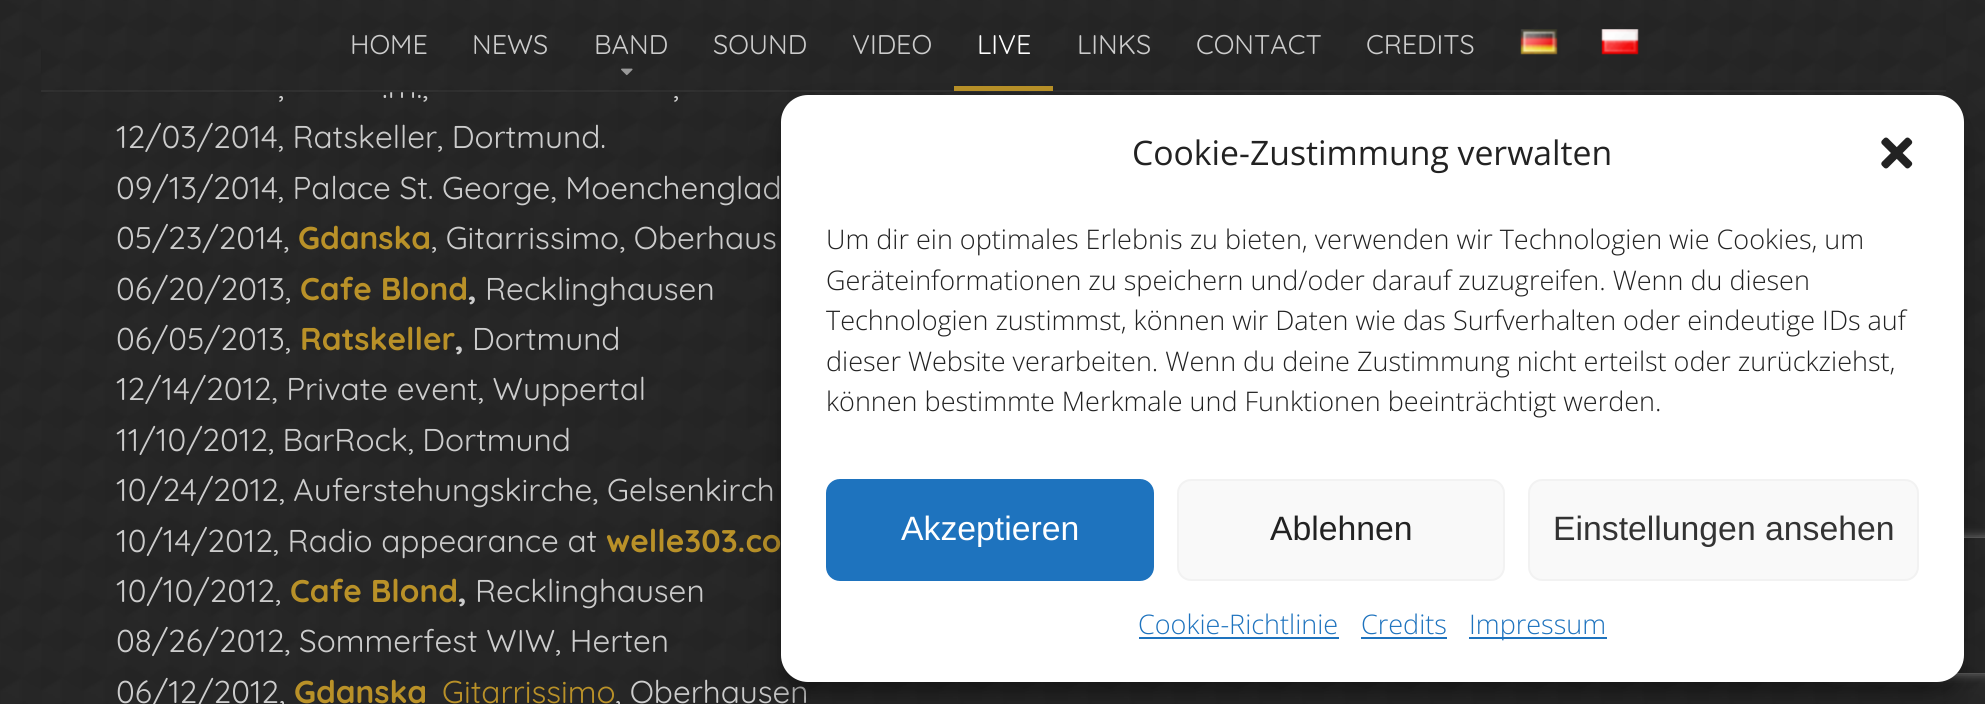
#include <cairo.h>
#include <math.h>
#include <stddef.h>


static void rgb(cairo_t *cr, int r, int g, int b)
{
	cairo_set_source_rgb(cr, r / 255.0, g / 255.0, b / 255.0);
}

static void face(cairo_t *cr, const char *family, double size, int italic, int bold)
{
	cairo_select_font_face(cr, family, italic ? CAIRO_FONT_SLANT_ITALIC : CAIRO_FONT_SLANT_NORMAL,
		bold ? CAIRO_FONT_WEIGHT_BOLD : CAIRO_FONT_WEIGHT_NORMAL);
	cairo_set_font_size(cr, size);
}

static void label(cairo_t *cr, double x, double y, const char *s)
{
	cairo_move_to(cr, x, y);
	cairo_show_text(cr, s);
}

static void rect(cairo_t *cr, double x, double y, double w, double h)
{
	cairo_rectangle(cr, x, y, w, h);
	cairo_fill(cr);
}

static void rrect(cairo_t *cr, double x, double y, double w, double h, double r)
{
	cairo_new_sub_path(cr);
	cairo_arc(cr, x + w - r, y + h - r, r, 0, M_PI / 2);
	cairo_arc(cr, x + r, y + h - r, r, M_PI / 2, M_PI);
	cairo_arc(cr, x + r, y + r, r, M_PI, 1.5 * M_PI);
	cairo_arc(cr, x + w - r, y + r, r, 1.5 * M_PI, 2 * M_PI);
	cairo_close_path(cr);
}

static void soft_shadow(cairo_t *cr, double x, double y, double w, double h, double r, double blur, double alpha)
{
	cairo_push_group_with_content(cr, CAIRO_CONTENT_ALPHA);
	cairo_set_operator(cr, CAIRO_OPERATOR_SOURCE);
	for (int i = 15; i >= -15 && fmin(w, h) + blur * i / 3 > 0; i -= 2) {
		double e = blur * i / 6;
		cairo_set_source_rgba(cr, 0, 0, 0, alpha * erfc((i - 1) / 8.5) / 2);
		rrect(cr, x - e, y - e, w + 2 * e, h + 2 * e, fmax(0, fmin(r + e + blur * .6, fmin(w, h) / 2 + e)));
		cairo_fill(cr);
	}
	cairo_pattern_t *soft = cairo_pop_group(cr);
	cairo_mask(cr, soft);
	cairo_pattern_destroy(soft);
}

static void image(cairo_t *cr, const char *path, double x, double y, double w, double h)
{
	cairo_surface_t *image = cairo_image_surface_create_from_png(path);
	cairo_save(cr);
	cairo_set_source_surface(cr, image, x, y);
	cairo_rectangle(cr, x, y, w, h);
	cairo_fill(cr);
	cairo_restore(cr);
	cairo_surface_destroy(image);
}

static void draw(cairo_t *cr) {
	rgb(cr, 255, 255, 255);
	cairo_paint(cr);
	image(cr, "image0.png", 0, 0, 1985, 704);
	image(cr, "image1.png", 41, 0, 1905, 704);
	face(cr, "Quicksand", 31.5, 0, 0);
	rgb(cr, 204, 204, 204);
	label(cr, 382, 98, ".m.,");
	image(cr, "image2.png", 41, 0, 1905, 93);
	cairo_set_source_rgba(cr, 1, 1, 1, 0.05);
	rect(cr, 41, 90, 1905, 2);
	face(cr, "Quicksand", 27, 0, 0);
	rgb(cr, 204, 204, 204);
	label(cr, 350, 54, "HOME");
	label(cr, 472, 54, "NEWS");
	label(cr, 594, 54, "BAND");
	image(cr, "image3.png", 621, 68, 12, 8);
	label(cr, 713, 54, "SOUND");
	label(cr, 852, 54, "VIDEO");
	rgb(cr, 185, 145, 40);
	rect(cr, 954, 86, 99, 5);
	rgb(cr, 255, 255, 255);
	label(cr, 977, 54, "LIVE");
	rgb(cr, 204, 204, 204);
	label(cr, 1077, 54, "LINKS");
	label(cr, 1196, 54, "CONTACT");
	label(cr, 1366, 54, "CREDITS");
	image(cr, "image4.png", 1520, 29, 38, 26);
	image(cr, "image5.png", 1601, 29, 38, 26);
	face(cr, "Quicksand", 31.5, 0, 0);
	label(cr, 278, 98, ",");
	label(cr, 673, 98, ",");
	label(cr, 116, 148, "12/03/2014, Ratskeller, Dortmund.");
	label(cr, 116, 199, "09/13/2014, Palace St. George, Moenchenglad");
	label(cr, 116, 249, "05/23/2014,");
	face(cr, "Quicksand", 31.5, 0, 1);
	rgb(cr, 185, 145, 40);
	label(cr, 298, 249, "Gdanska");
	face(cr, "Quicksand", 31.5, 0, 0);
	rgb(cr, 204, 204, 204);
	label(cr, 431, 249, ", Gitarrissimo, Oberhaus");
	label(cr, 116, 300, "06/20/2013,");
	face(cr, "Quicksand", 31.5, 0, 1);
	rgb(cr, 185, 145, 40);
	label(cr, 300, 300, "Cafe Blond");
	rgb(cr, 204, 204, 204);
	label(cr, 468, 300, ",");
	face(cr, "Quicksand", 31.5, 0, 0);
	label(cr, 485, 300, "Recklinghausen");
	label(cr, 116, 350, "06/05/2013,");
	face(cr, "Quicksand", 31.5, 0, 1);
	rgb(cr, 185, 145, 40);
	label(cr, 300, 350, "Ratskeller");
	rgb(cr, 204, 204, 204);
	label(cr, 455, 350, ",");
	face(cr, "Quicksand", 31.5, 0, 0);
	label(cr, 472, 350, "Dortmund");
	label(cr, 116, 400, "12/14/2012, Private event, Wuppertal");
	label(cr, 116, 451, "11/10/2012, BarRock, Dortmund");
	label(cr, 116, 501, "10/24/2012, Auferstehungskirche, Gelsenkirch");
	label(cr, 116, 552, "10/14/2012, Radio appearance at");
	face(cr, "Quicksand", 31.5, 0, 1);
	rgb(cr, 185, 145, 40);
	label(cr, 606, 552, "welle303.co");
	face(cr, "Quicksand", 31.5, 0, 0);
	rgb(cr, 204, 204, 204);
	label(cr, 116, 602, "10/10/2012,");
	face(cr, "Quicksand", 31.5, 0, 1);
	rgb(cr, 185, 145, 40);
	label(cr, 290, 602, "Cafe Blond");
	rgb(cr, 204, 204, 204);
	label(cr, 458, 602, ",");
	face(cr, "Quicksand", 31.5, 0, 0);
	label(cr, 475, 602, "Recklinghausen");
	label(cr, 116, 652, "08/26/2012, Sommerfest WIW, Herten");
	label(cr, 116, 703, "06/12/2012,");
	face(cr, "Quicksand", 31.5, 0, 1);
	rgb(cr, 185, 145, 40);
	label(cr, 294, 703, "Gdanska");
	face(cr, "Quicksand", 31.5, 0, 0);
	label(cr, 442, 703, "Gitarrissimo");
	rgb(cr, 204, 204, 204);
	label(cr, 615, 703, ", Oberhausen");
	rgb(cr, 0, 0, 0);
	soft_shadow(cr, 781, 108, 1183, 587, 27, 7, 0.23);
	soft_shadow(cr, 781, 117, 1183, 587, 27, 22.5, 0.19);
	cairo_save(cr);
	cairo_set_fill_rule(cr, CAIRO_FILL_RULE_EVEN_ODD);
	cairo_new_path(cr);
	cairo_move_to(cr, 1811, 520);
	cairo_line_to(cr, 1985, 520);
	cairo_line_to(cr, 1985, 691);
	cairo_line_to(cr, 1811, 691);
	cairo_close_path(cr);
	cairo_move_to(cr, 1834, 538);
	cairo_line_to(cr, 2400, 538);
	cairo_curve_to(cr, 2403, 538, 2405, 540, 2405, 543);
	cairo_line_to(cr, 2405, 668);
	cairo_curve_to(cr, 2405, 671, 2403, 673, 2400, 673);
	cairo_line_to(cr, 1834, 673);
	cairo_curve_to(cr, 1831, 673, 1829, 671, 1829, 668);
	cairo_line_to(cr, 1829, 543);
	cairo_curve_to(cr, 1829, 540, 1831, 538, 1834, 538);
	cairo_close_path(cr);
	cairo_clip(cr);
	rgb(cr, 128, 128, 128);
	soft_shadow(cr, 1829, 538, 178, 135, 5, 5.5, 1);
	cairo_restore(cr);
	rgb(cr, 255, 255, 255);
	rrect(cr, 781, 95, 1183, 587, 27);
	cairo_fill(cr);
	face(cr, "Open Sans", 33.75, 0, 0);
	rgb(cr, 34, 34, 34);
	label(cr, 1132, 165, "Cookie-Zustimmung verwalten");
	image(cr, "image6.png", 1881, 137, 32, 32);
	face(cr, "Open Sans Light", 27, 0, 0);
	label(cr, 826, 249, "Um dir ein optimales Erlebnis zu bieten, verwenden wir Technologien wie Cookies, um");
	label(cr, 826, 290, "Geräteinformationen zu speichern und/oder darauf zuzugreifen. Wenn du diesen");
	label(cr, 826, 330, "Technologien zustimmst, können wir Daten wie das Surfverhalten oder eindeutige IDs auf");
	label(cr, 826, 371, "dieser Website verarbeiten. Wenn du deine Zustimmung nicht erteilst oder zurückziehst,");
	label(cr, 826, 411, "können bestimmte Merkmale und Funktionen beeinträchtigt werden.");
	rgb(cr, 30, 115, 190);
	rrect(cr, 827, 480, 326, 100, 13);
	cairo_fill_preserve(cr);
	cairo_stroke(cr);
	face(cr, "Liberation Sans", 33.75, 0, 0);
	rgb(cr, 255, 255, 255);
	label(cr, 901, 540, "Akzeptieren");
	rgb(cr, 249, 249, 249);
	rrect(cr, 1178, 480, 326, 100, 13);
	cairo_fill_preserve(cr);
	rgb(cr, 242, 242, 242);
	cairo_stroke(cr);
	rgb(cr, 34, 34, 34);
	label(cr, 1270, 540, "Ablehnen");
	rgb(cr, 249, 249, 249);
	rrect(cr, 1529, 480, 389, 100, 13);
	cairo_fill_preserve(cr);
	rgb(cr, 242, 242, 242);
	cairo_stroke(cr);
	rgb(cr, 51, 51, 51);
	label(cr, 1553, 540, "Einstellungen ansehen");
	face(cr, "Open Sans Light", 27, 0, 0);
	rgb(cr, 30, 115, 190);
	label(cr, 1138, 634, "Cookie-Richtlinie");
	rect(cr, 1139, 637, 200, 2);
	label(cr, 1361, 634, "Credits");
	rect(cr, 1361, 637, 86, 2);
	rect(cr, 1469, 637, 138, 2);
	label(cr, 1469, 634, "Impressum");
}

int main(void) {
	cairo_surface_t *surface = cairo_image_surface_create(CAIRO_FORMAT_RGB24, 1985, 704);
	cairo_t *cr = cairo_create(surface);
	cairo_font_options_t *options = cairo_font_options_create();
	cairo_font_options_set_hint_metrics(options, CAIRO_HINT_METRICS_OFF);
	cairo_font_options_set_hint_style(options, CAIRO_HINT_STYLE_NONE);
	cairo_set_font_options(cr, options);
	cairo_set_miter_limit(cr, 4);
	draw(cr);
	cairo_surface_write_to_png(surface, "render.png");
	cairo_font_options_destroy(options);
	cairo_destroy(cr);
	cairo_surface_destroy(surface);
	return 0;
}
